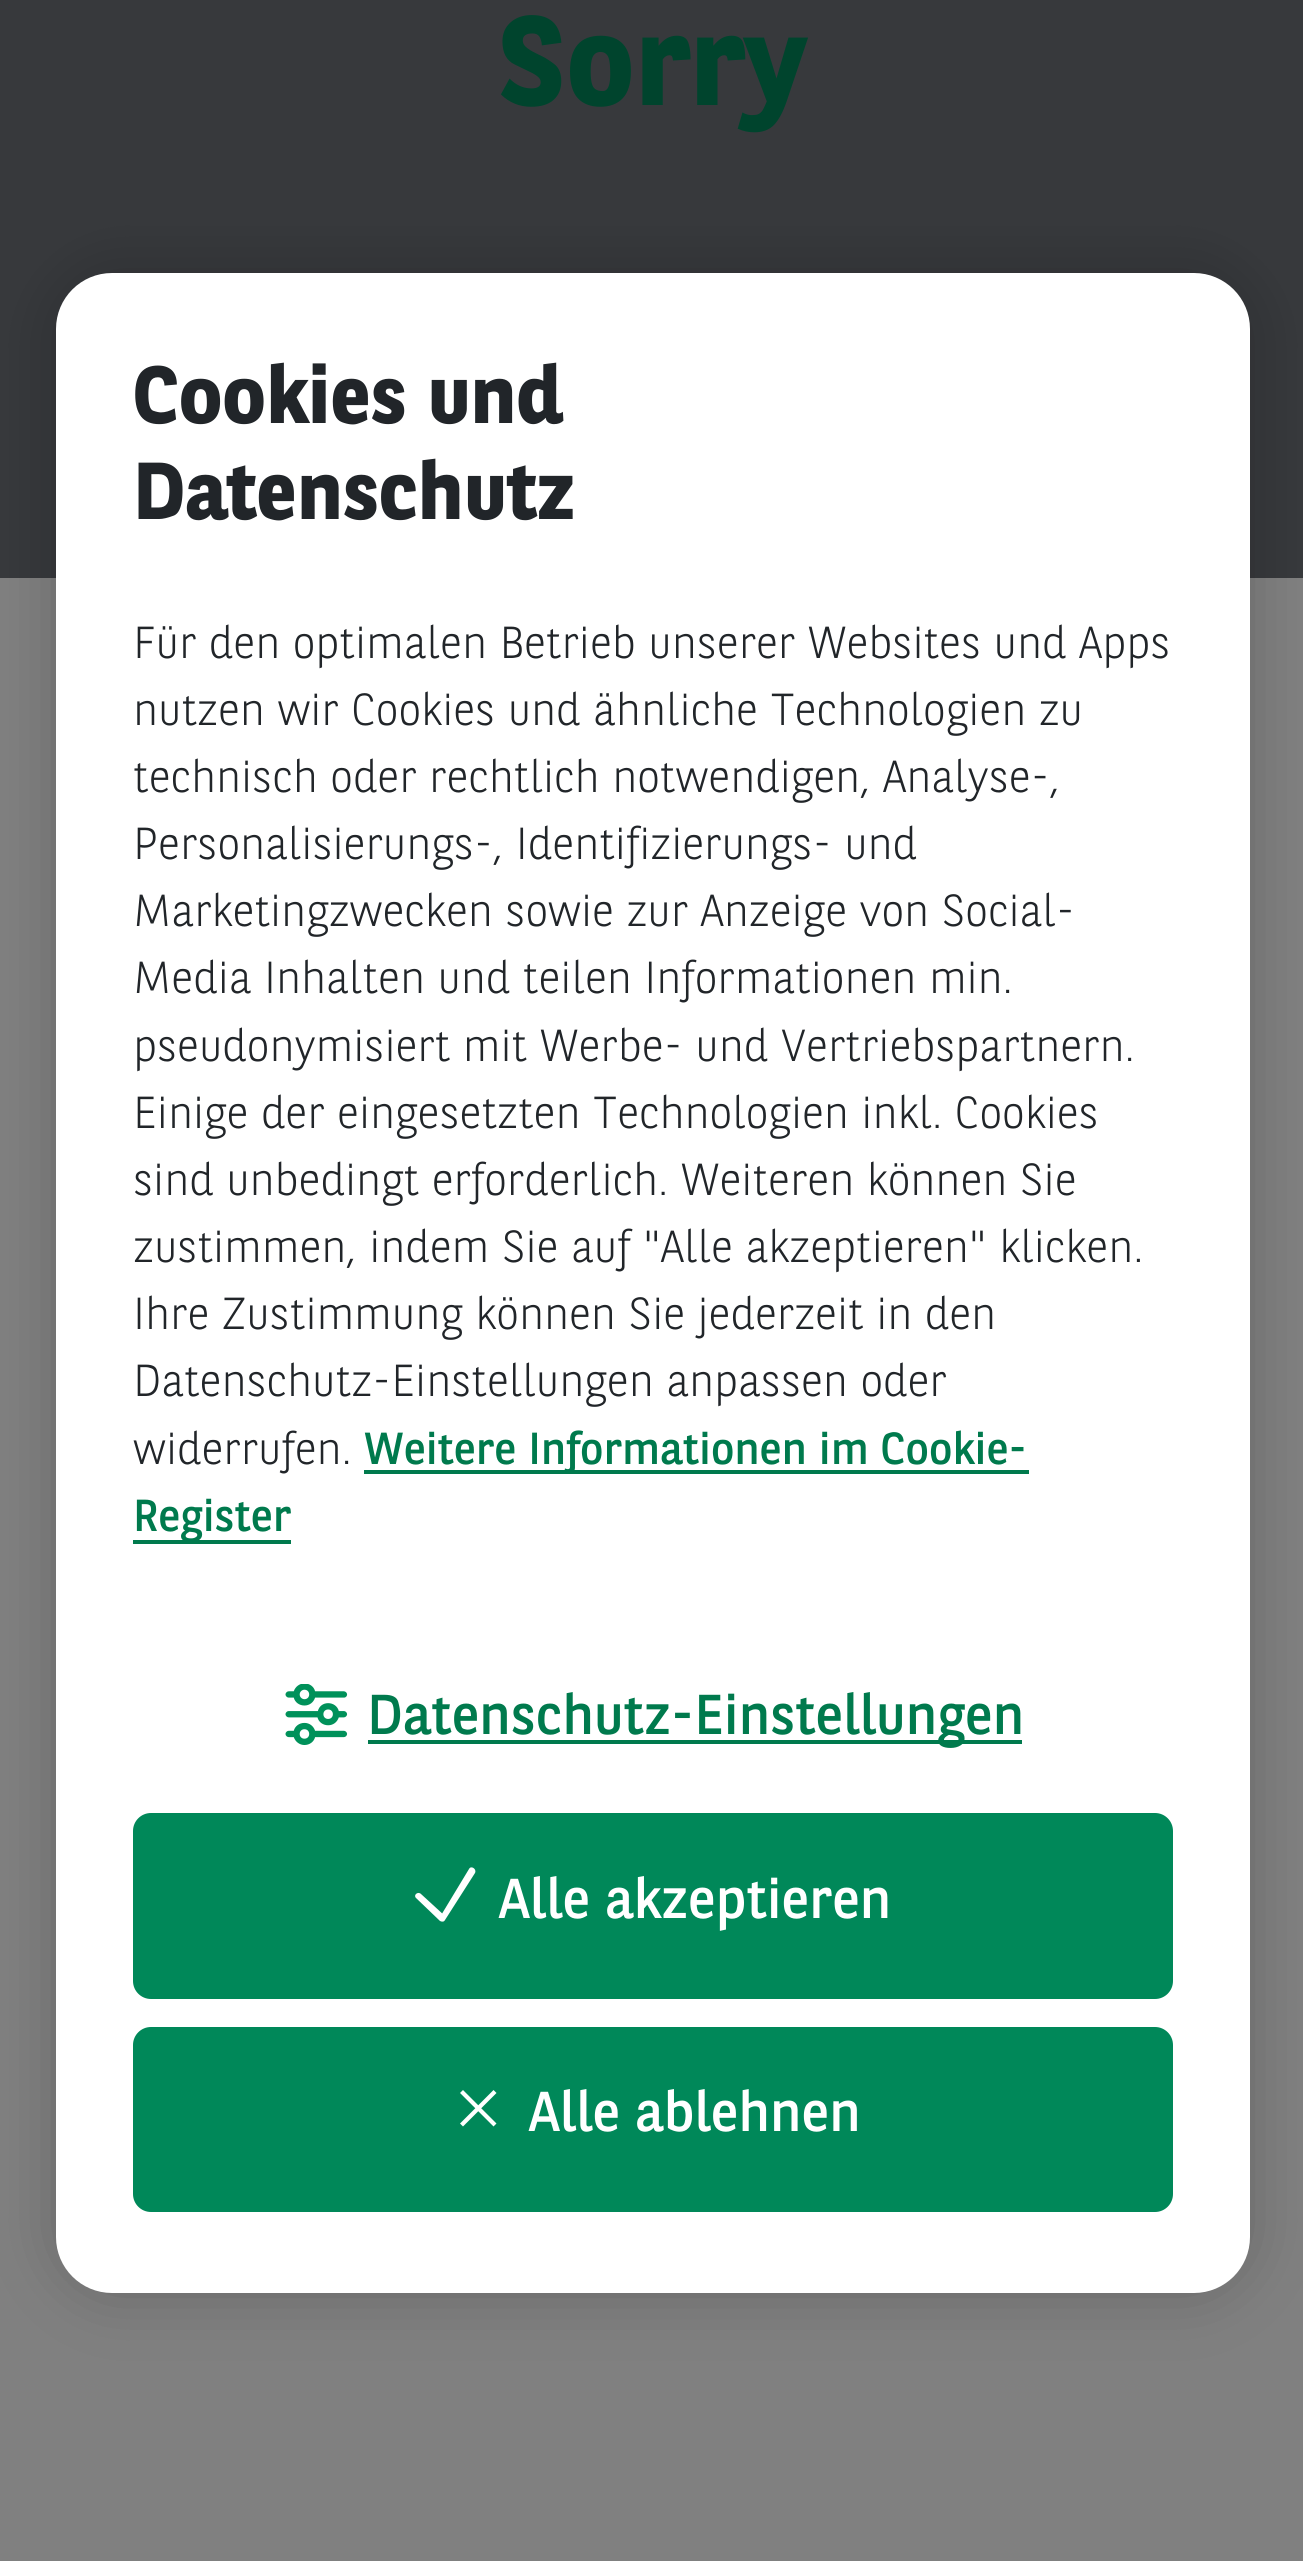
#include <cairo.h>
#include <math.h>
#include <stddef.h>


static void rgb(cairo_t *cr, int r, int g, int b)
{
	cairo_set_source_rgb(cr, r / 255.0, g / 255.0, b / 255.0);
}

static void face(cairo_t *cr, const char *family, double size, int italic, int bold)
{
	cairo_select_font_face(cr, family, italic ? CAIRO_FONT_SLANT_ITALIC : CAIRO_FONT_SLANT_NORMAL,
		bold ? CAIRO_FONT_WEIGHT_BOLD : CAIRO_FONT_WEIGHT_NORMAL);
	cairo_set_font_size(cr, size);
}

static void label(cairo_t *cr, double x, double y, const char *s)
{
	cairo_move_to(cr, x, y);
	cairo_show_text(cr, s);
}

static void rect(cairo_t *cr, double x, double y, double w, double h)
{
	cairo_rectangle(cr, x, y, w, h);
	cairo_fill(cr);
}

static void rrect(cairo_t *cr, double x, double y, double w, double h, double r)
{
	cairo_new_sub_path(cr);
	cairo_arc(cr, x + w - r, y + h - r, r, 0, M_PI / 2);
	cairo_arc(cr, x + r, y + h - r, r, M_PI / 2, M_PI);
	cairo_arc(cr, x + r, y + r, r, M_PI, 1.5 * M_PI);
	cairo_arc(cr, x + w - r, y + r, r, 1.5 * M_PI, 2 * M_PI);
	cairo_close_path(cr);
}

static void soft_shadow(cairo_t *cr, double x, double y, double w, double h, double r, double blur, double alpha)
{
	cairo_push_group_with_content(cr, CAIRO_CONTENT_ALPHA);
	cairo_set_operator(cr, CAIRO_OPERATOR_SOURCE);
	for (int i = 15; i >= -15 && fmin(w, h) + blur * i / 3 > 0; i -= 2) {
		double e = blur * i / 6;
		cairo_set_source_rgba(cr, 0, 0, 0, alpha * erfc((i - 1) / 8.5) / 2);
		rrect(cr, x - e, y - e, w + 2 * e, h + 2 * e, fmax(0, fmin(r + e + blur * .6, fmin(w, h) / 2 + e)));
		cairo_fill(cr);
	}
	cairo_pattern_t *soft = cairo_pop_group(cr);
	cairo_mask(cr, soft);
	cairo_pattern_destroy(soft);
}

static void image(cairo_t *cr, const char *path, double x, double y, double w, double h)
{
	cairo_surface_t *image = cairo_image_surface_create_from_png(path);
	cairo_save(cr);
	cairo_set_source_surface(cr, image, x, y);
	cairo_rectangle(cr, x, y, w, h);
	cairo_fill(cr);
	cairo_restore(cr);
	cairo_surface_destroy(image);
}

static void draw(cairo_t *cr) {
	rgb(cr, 128, 128, 128);
	cairo_paint(cr);
	rgb(cr, 55, 57, 60);
	rect(cr, 0, 0, 1303, 578);
	face(cr, "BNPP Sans", 126, 0, 1);
	rgb(cr, 0, 68, 45);
	label(cr, 498, 105, "Sorry");
	rgb(cr, 0, 0, 0);
	soft_shadow(cr, 56, 273, 1194, 2020, 56, 31.5, 0.2);
	rgb(cr, 255, 255, 255);
	rrect(cr, 56, 273, 1194, 2020, 56);
	cairo_fill(cr);
	face(cr, "BNPP Sans", 80.5, 0, 1);
	rgb(cr, 33, 37, 41);
	label(cr, 133, 423, "Cookies und");
	label(cr, 133, 519, "Datenschutz");
	face(cr, "BNPP Sans Light", 44.8, 0, 0);
	label(cr, 133, 658, "Für den optimalen Betrieb unserer Websites und Apps");
	label(cr, 133, 725, "nutzen wir Cookies und ähnliche Technologien zu");
	label(cr, 133, 792, "technisch oder rechtlich notwendigen, Analyse-,");
	label(cr, 133, 859, "Personalisierungs-, Identifizierungs- und");
	label(cr, 133, 926, "Marketingzwecken sowie zur Anzeige von Social-");
	label(cr, 133, 993, "Media Inhalten und teilen Informationen min.");
	label(cr, 133, 1061, "pseudonymisiert mit Werbe- und Vertriebspartnern.");
	label(cr, 133, 1128, "Einige der eingesetzten Technologien inkl. Cookies");
	label(cr, 133, 1195, "sind unbedingt erforderlich. Weiteren können Sie");
	label(cr, 133, 1262, "zustimmen, indem Sie auf \"Alle akzeptieren\" klicken.");
	label(cr, 133, 1329, "Ihre Zustimmung können Sie jederzeit in den");
	label(cr, 133, 1396, "Datenschutz-Einstellungen anpassen oder");
	label(cr, 133, 1464, "widerrufen.");
	rgb(cr, 0, 122, 77);
	rect(cr, 364, 1470, 665, 4);
	face(cr, "BNPP Sans", 44.8, 0, 0);
	label(cr, 364, 1464, "Weitere Informationen im Cookie-");
	rect(cr, 133, 1540, 158, 4);
	label(cr, 133, 1531, "Register");
	image(cr, "image0.png", 285, 1684, 63, 61);
	rect(cr, 368, 1740, 654, 4);
	face(cr, "BNPP Sans", 56, 0, 0);
	label(cr, 367, 1734, "Datenschutz-Einstellungen");
	rgb(cr, 0, 136, 89);
	rrect(cr, 133, 1813, 1040, 186, 18);
	cairo_fill(cr);
	rgb(cr, 255, 255, 255);
	cairo_new_path(cr);
	cairo_move_to(cr, 442, 1918);
	cairo_line_to(cr, 440, 1921);
	cairo_curve_to(cr, 442, 1922, 444, 1922, 445, 1920);
	cairo_close_path(cr);
	cairo_move_to(cr, 421, 1894);
	cairo_curve_to(cr, 418, 1891, 413, 1895, 416, 1898);
	cairo_close_path(cr);
	cairo_move_to(cr, 475, 1873);
	cairo_curve_to(cr, 477, 1869, 471, 1865, 469, 1869);
	cairo_close_path(cr);
	cairo_move_to(cr, 445, 1916);
	cairo_line_to(cr, 421, 1894);
	cairo_line_to(cr, 416, 1898);
	cairo_line_to(cr, 440, 1921);
	cairo_close_path(cr);
	cairo_move_to(cr, 469, 1869);
	cairo_line_to(cr, 440, 1917);
	cairo_line_to(cr, 445, 1920);
	cairo_line_to(cr, 475, 1873);
	cairo_close_path(cr);
	cairo_fill(cr);
	label(cr, 499, 1918, "Alle akzeptieren");
	rgb(cr, 0, 136, 89);
	rrect(cr, 133, 2027, 1040, 185, 18);
	cairo_fill(cr);
	cairo_new_path(cr);
	cairo_move_to(cr, 461.5, 2091.5);
	cairo_line_to(cr, 495, 2125);
	cairo_move_to(cr, 461.5, 2125);
	cairo_line_to(cr, 495, 2091.5);
	rgb(cr, 255, 255, 255);
	cairo_set_line_width(cr, 4.2);
	cairo_stroke(cr);
	label(cr, 529, 2131, "Alle ablehnen");
}

int main(void) {
	cairo_surface_t *surface = cairo_image_surface_create(CAIRO_FORMAT_RGB24, 1303, 2561);
	cairo_t *cr = cairo_create(surface);
	cairo_font_options_t *options = cairo_font_options_create();
	cairo_font_options_set_hint_metrics(options, CAIRO_HINT_METRICS_OFF);
	cairo_font_options_set_hint_style(options, CAIRO_HINT_STYLE_NONE);
	cairo_set_font_options(cr, options);
	cairo_set_miter_limit(cr, 4);
	draw(cr);
	cairo_surface_write_to_png(surface, "render.png");
	cairo_font_options_destroy(options);
	cairo_destroy(cr);
	cairo_surface_destroy(surface);
	return 0;
}
